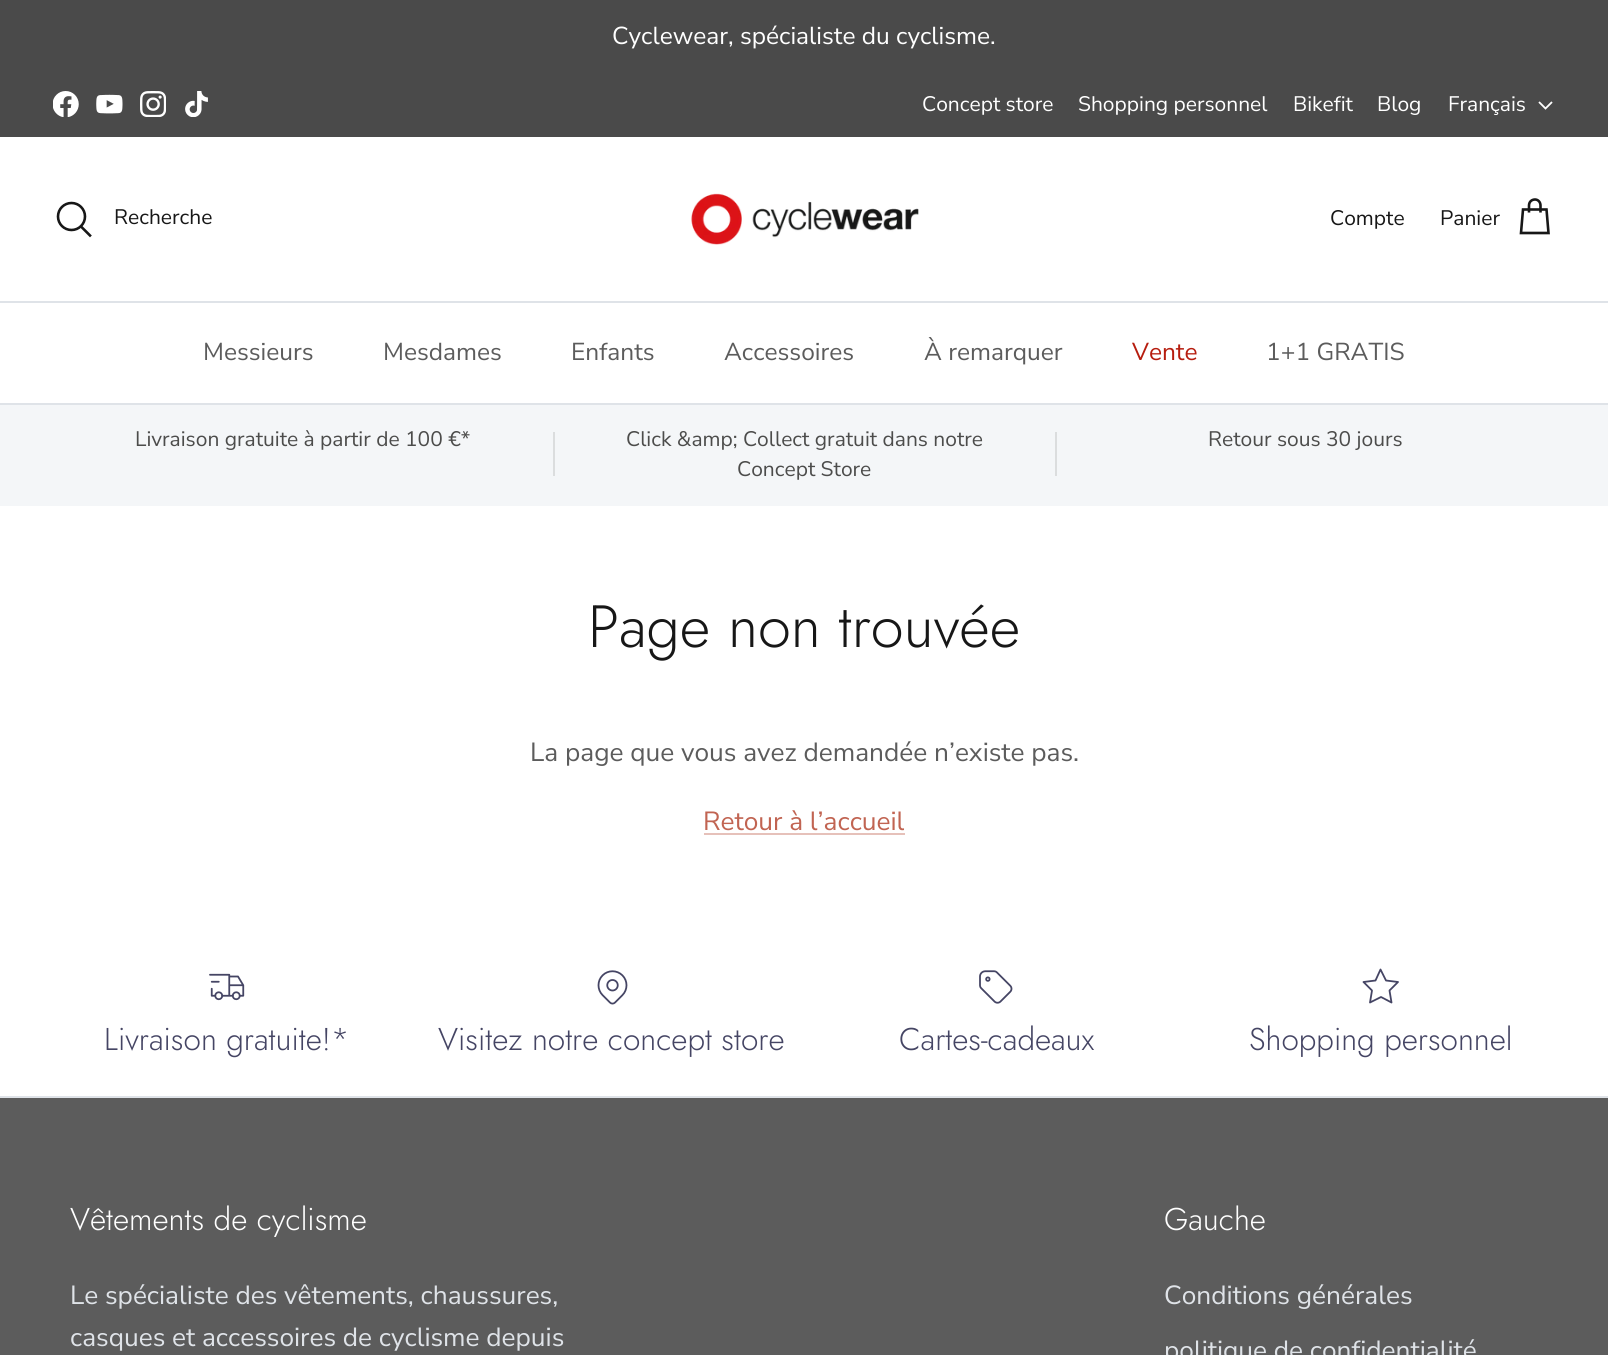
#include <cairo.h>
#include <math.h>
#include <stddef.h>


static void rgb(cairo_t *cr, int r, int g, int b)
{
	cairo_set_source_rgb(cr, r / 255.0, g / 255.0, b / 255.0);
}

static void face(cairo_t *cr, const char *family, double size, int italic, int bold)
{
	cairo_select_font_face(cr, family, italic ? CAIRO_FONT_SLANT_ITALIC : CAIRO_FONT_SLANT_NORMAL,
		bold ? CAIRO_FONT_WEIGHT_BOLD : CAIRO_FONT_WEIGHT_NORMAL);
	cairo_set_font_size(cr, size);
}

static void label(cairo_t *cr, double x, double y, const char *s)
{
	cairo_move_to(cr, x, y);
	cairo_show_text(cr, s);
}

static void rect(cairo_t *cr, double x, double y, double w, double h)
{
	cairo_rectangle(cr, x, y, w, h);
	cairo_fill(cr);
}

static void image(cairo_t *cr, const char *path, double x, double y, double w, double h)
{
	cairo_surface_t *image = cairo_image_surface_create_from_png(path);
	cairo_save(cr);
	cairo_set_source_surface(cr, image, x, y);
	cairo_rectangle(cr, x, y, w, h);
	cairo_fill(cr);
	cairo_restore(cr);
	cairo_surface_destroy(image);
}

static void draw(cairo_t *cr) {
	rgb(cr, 255, 255, 255);
	cairo_paint(cr);
	rgb(cr, 74, 74, 74);
	rect(cr, 0, 0, 1608, 137);
	face(cr, "Nunito Sans", 24.5, 0, 0);
	rgb(cr, 255, 255, 255);
	label(cr, 612, 44, "Cyclewear, spécialiste du cyclisme.");
	image(cr, "image0.png", 53, 91, 26, 26);
	image(cr, "image1.png", 96, 94, 27, 20);
	image(cr, "image2.png", 140, 91, 26, 26);
	image(cr, "image3.png", 185, 91, 23, 26);
	face(cr, "Nunito Sans", 21, 0, 0);
	label(cr, 922, 111, "Concept store");
	label(cr, 1078, 111, "Shopping personnel");
	label(cr, 1293, 111, "Bikefit");
	label(cr, 1377, 111, "Blog");
	label(cr, 1448, 111, "Français");
	cairo_new_path(cr);
	cairo_move_to(cr, 1552, 102);
	cairo_line_to(cr, 1545.5, 108.5);
	cairo_line_to(cr, 1539, 102);
	cairo_set_line_width(cr, 1.8);
	cairo_stroke(cr);
	rgb(cr, 223, 227, 232);
	rect(cr, 0, 301, 1608, 2);
	cairo_arc(cr, 71.5, 216.5, 13.5, 0, 2 * M_PI);
	rgb(cr, 23, 23, 23);
	cairo_set_line_width(cr, 2.6);
	cairo_stroke(cr);
	label(cr, 114, 224, "Recherche");
	cairo_new_path(cr);
	cairo_move_to(cr, 82, 227.5);
	cairo_line_to(cr, 90, 235.5);
	cairo_set_line_cap(cr, CAIRO_LINE_CAP_SQUARE);
	cairo_stroke(cr);
	image(cr, "image4.png", 691, 193, 228, 52);
	label(cr, 1330, 225, "Compte");
	label(cr, 1440, 225, "Panier");
	cairo_new_path(cr);
	cairo_move_to(cr, 1540.5, 212.5);
	cairo_line_to(cr, 1540.5, 205.5);
	cairo_curve_to(cr, 1540.5, 202, 1538, 199.5, 1535, 199.5);
	cairo_curve_to(cr, 1531.5, 199.5, 1529, 202, 1529, 205.5);
	cairo_line_to(cr, 1529, 212.5);
	cairo_move_to(cr, 1523, 209.5);
	cairo_line_to(cr, 1546.5, 209.5);
	cairo_line_to(cr, 1548.5, 233);
	cairo_line_to(cr, 1521, 233);
	cairo_close_path(cr);
	cairo_set_line_cap(cr, CAIRO_LINE_CAP_BUTT);
	cairo_stroke(cr);
	rgb(cr, 223, 227, 232);
	rect(cr, 0, 403, 1608, 2);
	face(cr, "Nunito Sans", 24.5, 0, 0);
	rgb(cr, 92, 92, 92);
	label(cr, 203, 360, "Messieurs");
	label(cr, 383, 360, "Mesdames");
	label(cr, 571, 360, "Enfants");
	label(cr, 724, 360, "Accessoires");
	label(cr, 924, 360, "À remarquer");
	rgb(cr, 182, 29, 15);
	label(cr, 1132, 360, "Vente");
	rgb(cr, 92, 92, 92);
	label(cr, 1266, 360, "1+1 GRATIS");
	rgb(cr, 244, 246, 248);
	rect(cr, 0, 405, 1608, 101);
	face(cr, "Nunito Sans", 21, 0, 0);
	rgb(cr, 76, 76, 75);
	label(cr, 135, 446, "Livraison gratuite à partir de 100 €*");
	rgb(cr, 219, 221, 222);
	rect(cr, 553, 432, 2, 44);
	rgb(cr, 76, 76, 75);
	label(cr, 626, 446, "Click &amp; Collect gratuit dans notre");
	label(cr, 737, 476, "Concept Store");
	rgb(cr, 219, 221, 222);
	rect(cr, 1055, 432, 2, 44);
	rgb(cr, 76, 76, 75);
	label(cr, 1208, 446, "Retour sous 30 jours");
	face(cr, "Jost Light", 59.5, 0, 0);
	rgb(cr, 23, 23, 23);
	label(cr, 588, 647, "Page non trouvée");
	face(cr, "Nunito Sans", 26.25, 0, 0);
	rgb(cr, 92, 92, 92);
	label(cr, 530, 761, "La page que vous avez demandée n’existe pas.");
	rgb(cr, 193, 100, 82);
	label(cr, 703, 830, "Retour à l’accueil");
	rgb(cr, 230, 193, 186);
	rect(cr, 704, 833, 201, 2);
	image(cr, "image5.png", 209, 973, 36, 28);
	face(cr, "Jost Light", 31.5, 0, 0);
	rgb(cr, 69, 69, 100);
	label(cr, 104, 1050, "Livraison gratuite!*");
	image(cr, "image6.png", 597, 970, 31, 35);
	label(cr, 438, 1050, "Visitez notre concept store");
	image(cr, "image7.png", 979, 970, 34, 34);
	label(cr, 899, 1050, "Cartes-cadeaux");
	cairo_new_path(cr);
	cairo_move_to(cr, 1381, 997);
	cairo_line_to(cr, 1370, 1002.5);
	cairo_line_to(cr, 1372, 990.5);
	cairo_line_to(cr, 1363.5, 982);
	cairo_line_to(cr, 1375.5, 980.5);
	cairo_line_to(cr, 1380.5, 969.5);
	cairo_line_to(cr, 1386, 980.5);
	cairo_line_to(cr, 1398, 982);
	cairo_line_to(cr, 1389.5, 990.5);
	cairo_line_to(cr, 1391.5, 1002.5);
	cairo_close_path(cr);
	cairo_set_line_width(cr, 1.8);
	cairo_set_line_cap(cr, CAIRO_LINE_CAP_ROUND);
	cairo_set_line_join(cr, CAIRO_LINE_JOIN_ROUND);
	cairo_stroke(cr);
	label(cr, 1249, 1050, "Shopping personnel");
	rgb(cr, 92, 92, 92);
	rect(cr, 0, 1098, 1608, 257);
	rgb(cr, 223, 227, 232);
	rect(cr, 0, 1096, 1608, 2);
	rgb(cr, 255, 255, 255);
	label(cr, 70, 1230, "Vêtements de cyclisme");
	face(cr, "Nunito Sans", 26.25, 0, 0);
	rgb(cr, 223, 227, 232);
	label(cr, 70, 1304, "Le spécialiste des vêtements, chaussures,");
	label(cr, 70, 1346, "casques et accessoires de cyclisme depuis");
	face(cr, "Jost Light", 31.5, 0, 0);
	rgb(cr, 255, 255, 255);
	label(cr, 1164, 1230, "Gauche");
	face(cr, "Nunito Sans", 26.25, 0, 0);
	rgb(cr, 223, 227, 232);
	label(cr, 1164, 1304, "Conditions générales");
	label(cr, 1164, 1359, "politique de confidentialité");
}

int main(void) {
	cairo_surface_t *surface = cairo_image_surface_create(CAIRO_FORMAT_RGB24, 1608, 1355);
	cairo_t *cr = cairo_create(surface);
	cairo_font_options_t *options = cairo_font_options_create();
	cairo_font_options_set_hint_metrics(options, CAIRO_HINT_METRICS_OFF);
	cairo_font_options_set_hint_style(options, CAIRO_HINT_STYLE_NONE);
	cairo_set_font_options(cr, options);
	cairo_set_miter_limit(cr, 4);
	draw(cr);
	cairo_surface_write_to_png(surface, "render.png");
	cairo_font_options_destroy(options);
	cairo_destroy(cr);
	cairo_surface_destroy(surface);
	return 0;
}
